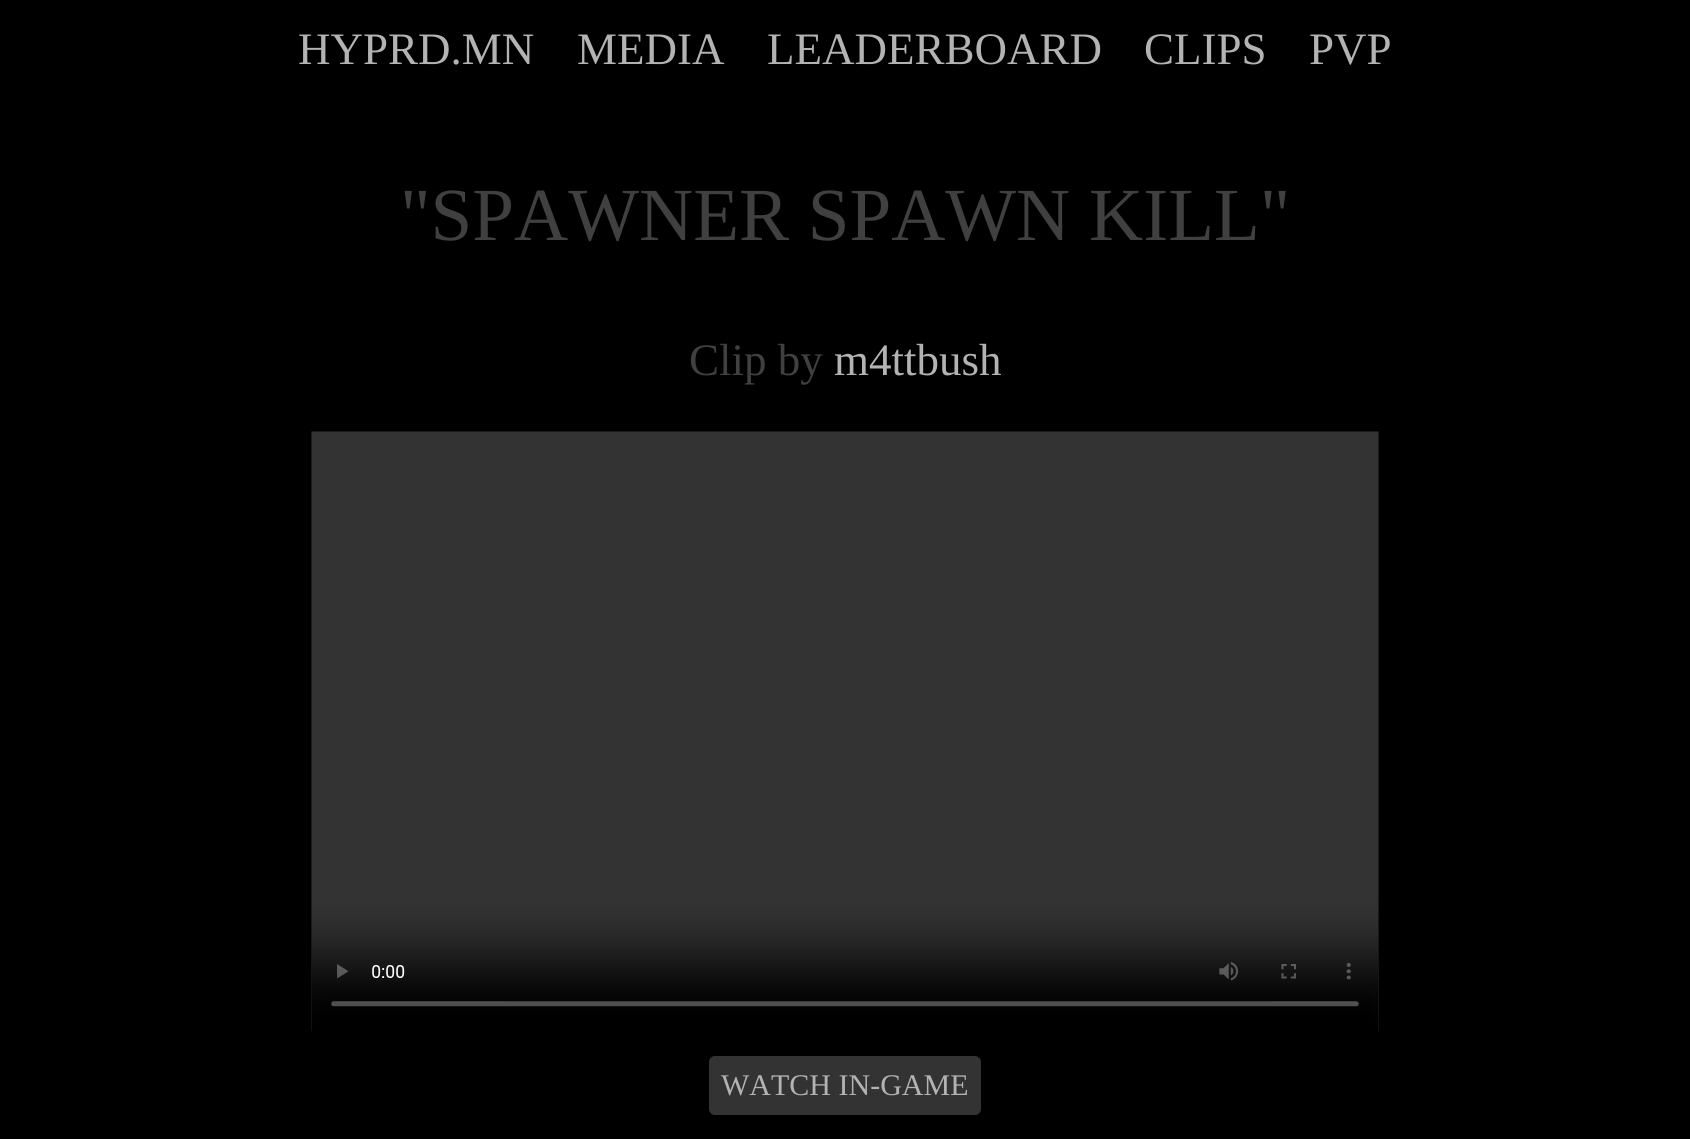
#include <cairo.h>
#include <math.h>
#include <stddef.h>


static void rgb(cairo_t *cr, int r, int g, int b)
{
	cairo_set_source_rgb(cr, r / 255.0, g / 255.0, b / 255.0);
}

static void face(cairo_t *cr, const char *family, double size, int italic, int bold)
{
	cairo_select_font_face(cr, family, italic ? CAIRO_FONT_SLANT_ITALIC : CAIRO_FONT_SLANT_NORMAL,
		bold ? CAIRO_FONT_WEIGHT_BOLD : CAIRO_FONT_WEIGHT_NORMAL);
	cairo_set_font_size(cr, size);
}

static void label(cairo_t *cr, double x, double y, const char *s)
{
	cairo_move_to(cr, x, y);
	cairo_show_text(cr, s);
}

static void rrect(cairo_t *cr, double x, double y, double w, double h, double r)
{
	cairo_new_sub_path(cr);
	cairo_arc(cr, x + w - r, y + h - r, r, 0, M_PI / 2);
	cairo_arc(cr, x + r, y + h - r, r, M_PI / 2, M_PI);
	cairo_arc(cr, x + r, y + r, r, M_PI, 1.5 * M_PI);
	cairo_arc(cr, x + w - r, y + r, r, 1.5 * M_PI, 2 * M_PI);
	cairo_close_path(cr);
}

static void image(cairo_t *cr, const char *path, double x, double y, double w, double h)
{
	cairo_surface_t *image = cairo_image_surface_create_from_png(path);
	cairo_save(cr);
	cairo_set_source_surface(cr, image, x, y);
	cairo_rectangle(cr, x, y, w, h);
	cairo_fill(cr);
	cairo_restore(cr);
	cairo_surface_destroy(image);
}

static void draw(cairo_t *cr) {
	rgb(cr, 0, 0, 0);
	cairo_paint(cr);
	face(cr, "Tinos", 45, 0, 0);
	rgb(cr, 179, 179, 179);
	label(cr, 298, 64, "HYPRD.MN");
	label(cr, 577, 64, "MEDIA");
	label(cr, 767, 64, "LEADERBOARD");
	label(cr, 1144, 64, "CLIPS");
	label(cr, 1309, 64, "PVP");
	face(cr, "Tinos", 75, 0, 0);
	rgb(cr, 64, 64, 64);
	label(cr, 400, 240, "\"SPAWNER SPAWN KILL\"");
	face(cr, "Tinos", 45, 0, 0);
	label(cr, 689, 375, "Clip by");
	rgb(cr, 179, 179, 179);
	label(cr, 834, 375, "m4ttbush");
	image(cr, "image0.png", 311, 431, 1068, 600);
	rgb(cr, 51, 51, 51);
	rrect(cr, 709, 1056, 272, 59, 6);
	cairo_fill(cr);
	face(cr, "Tinos", 30, 0, 0);
	rgb(cr, 179, 179, 179);
	label(cr, 721, 1095, "WATCH IN-GAME");
}

int main(void) {
	cairo_surface_t *surface = cairo_image_surface_create(CAIRO_FORMAT_RGB24, 1690, 1139);
	cairo_t *cr = cairo_create(surface);
	cairo_font_options_t *options = cairo_font_options_create();
	cairo_font_options_set_hint_metrics(options, CAIRO_HINT_METRICS_OFF);
	cairo_font_options_set_hint_style(options, CAIRO_HINT_STYLE_NONE);
	cairo_set_font_options(cr, options);
	cairo_set_miter_limit(cr, 4);
	draw(cr);
	cairo_surface_write_to_png(surface, "render.png");
	cairo_font_options_destroy(options);
	cairo_destroy(cr);
	cairo_surface_destroy(surface);
	return 0;
}
